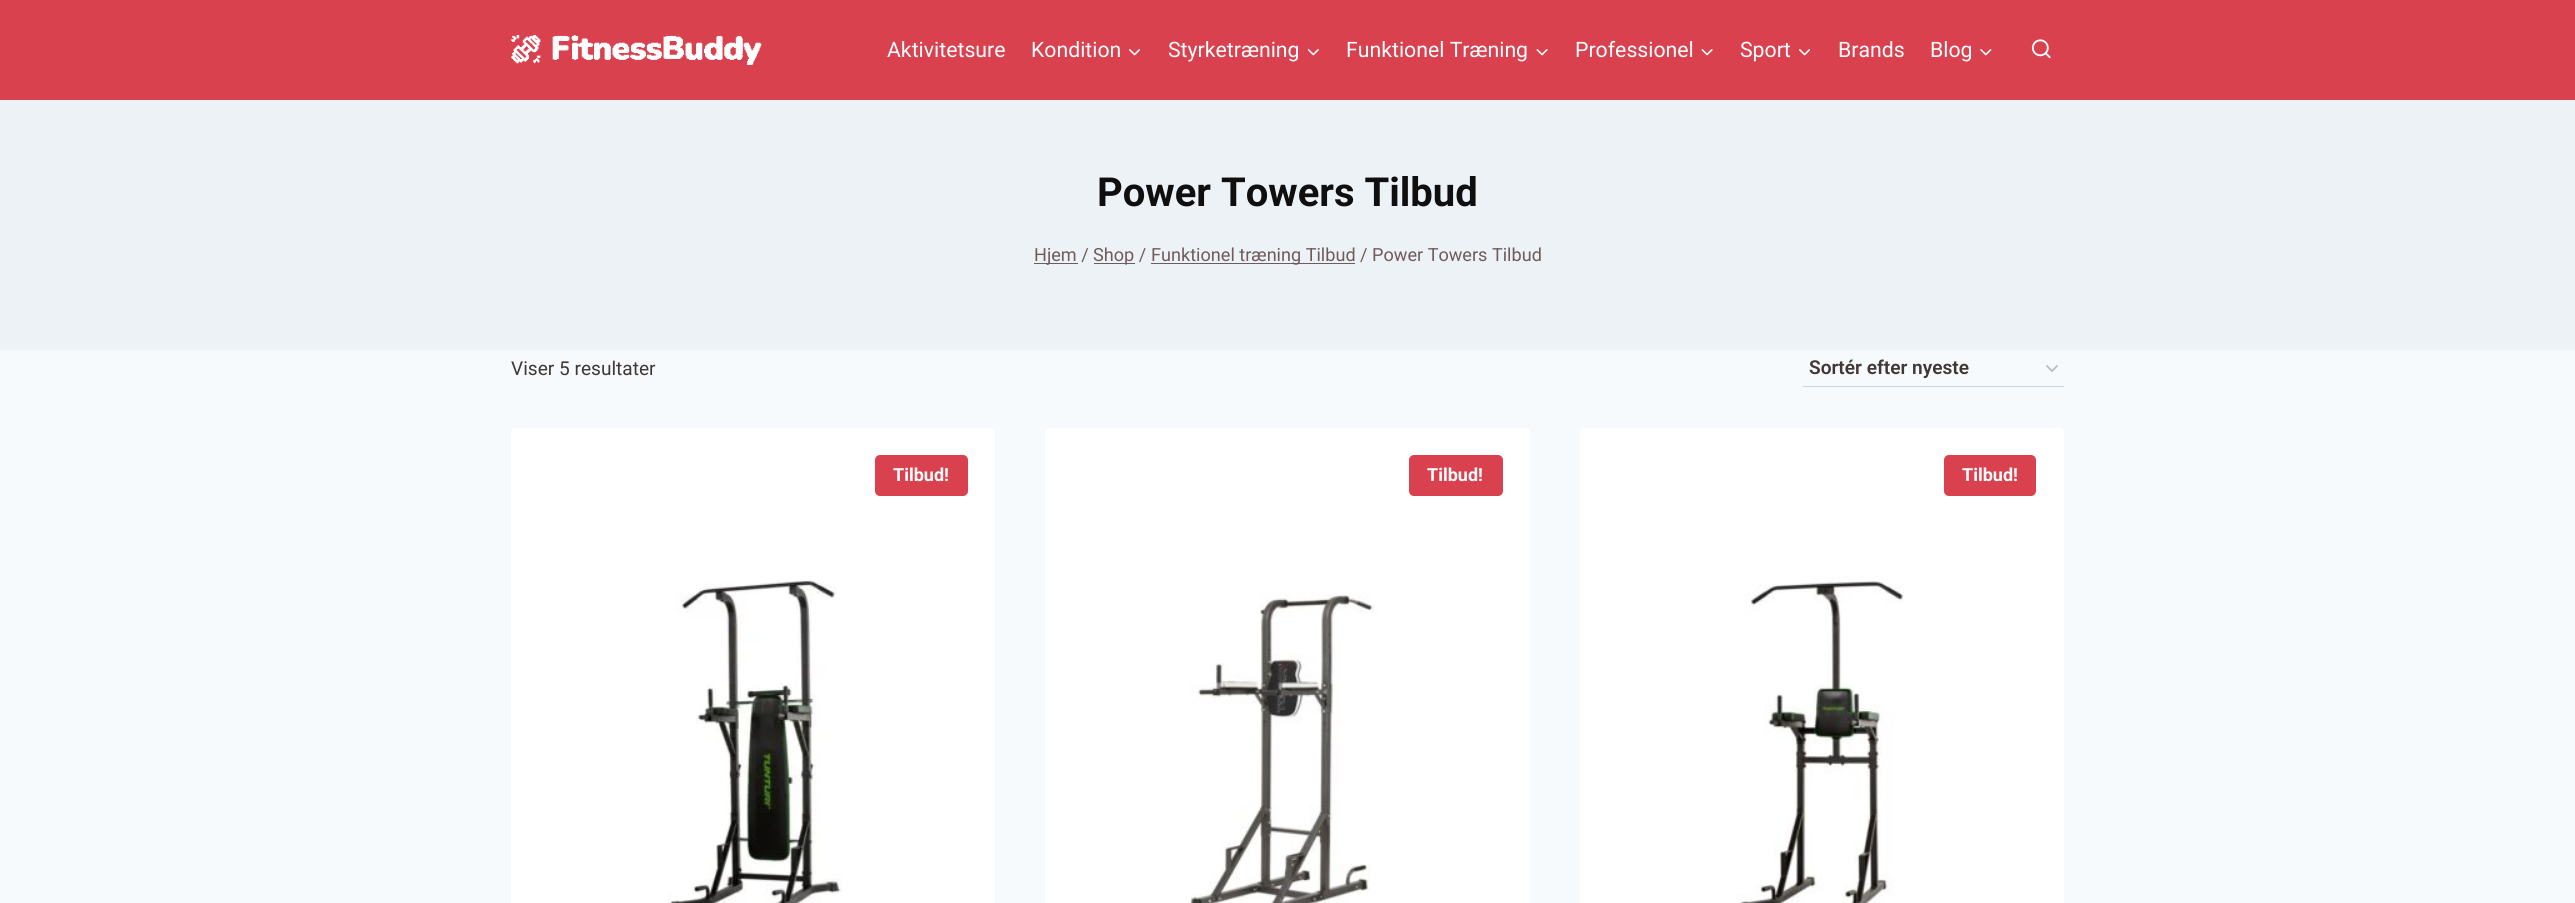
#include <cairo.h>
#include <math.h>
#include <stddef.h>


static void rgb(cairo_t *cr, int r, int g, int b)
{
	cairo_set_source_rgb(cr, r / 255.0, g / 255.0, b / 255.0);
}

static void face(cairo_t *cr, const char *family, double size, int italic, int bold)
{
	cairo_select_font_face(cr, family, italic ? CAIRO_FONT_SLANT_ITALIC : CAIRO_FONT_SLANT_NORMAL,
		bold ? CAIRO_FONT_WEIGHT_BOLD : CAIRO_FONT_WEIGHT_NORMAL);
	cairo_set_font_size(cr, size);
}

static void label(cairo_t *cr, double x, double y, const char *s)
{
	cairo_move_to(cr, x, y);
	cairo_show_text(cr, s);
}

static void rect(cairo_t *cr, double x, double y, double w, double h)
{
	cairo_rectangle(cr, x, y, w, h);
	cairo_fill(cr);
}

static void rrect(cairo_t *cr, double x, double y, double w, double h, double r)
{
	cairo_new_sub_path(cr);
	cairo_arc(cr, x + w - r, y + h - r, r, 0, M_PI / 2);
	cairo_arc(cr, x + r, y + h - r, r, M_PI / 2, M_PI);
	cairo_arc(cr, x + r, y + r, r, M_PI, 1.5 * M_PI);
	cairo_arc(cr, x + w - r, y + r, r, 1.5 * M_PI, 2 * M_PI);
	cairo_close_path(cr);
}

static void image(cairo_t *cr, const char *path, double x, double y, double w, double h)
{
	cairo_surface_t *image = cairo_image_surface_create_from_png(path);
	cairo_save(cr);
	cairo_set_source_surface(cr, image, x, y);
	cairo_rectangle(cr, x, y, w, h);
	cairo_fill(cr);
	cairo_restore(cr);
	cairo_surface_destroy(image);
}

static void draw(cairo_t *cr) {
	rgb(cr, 247, 250, 252);
	cairo_paint(cr);
	rgb(cr, 217, 65, 78);
	rect(cr, 0, 0, 2575, 100);
	image(cr, "image0.png", 511, 35, 251, 30);
	face(cr, "Roboto", 21.25, 0, 0);
	rgb(cr, 255, 255, 255);
	label(cr, 887, 57, "Aktivitetsure");
	label(cr, 1031, 57, "Kondition");
	image(cr, "image1.png", 1129, 49, 12, 7);
	label(cr, 1168, 57, "Styrketræning");
	image(cr, "image2.png", 1307, 49, 12, 7);
	label(cr, 1346, 57, "Funktionel Træning");
	image(cr, "image3.png", 1536, 49, 12, 7);
	label(cr, 1575, 57, "Professionel");
	image(cr, "image3.png", 1701, 49, 12, 7);
	label(cr, 1740, 57, "Sport");
	image(cr, "image1.png", 1799, 49, 12, 7);
	label(cr, 1838, 57, "Brands");
	label(cr, 1930, 57, "Blog");
	image(cr, "image4.png", 1980, 49, 12, 7);
	image(cr, "image5.png", 2031, 39, 20, 20);
	rgb(cr, 237, 242, 247);
	rect(cr, 0, 100, 2575, 250);
	face(cr, "Roboto", 40, 0, 1);
	rgb(cr, 15, 15, 15);
	label(cr, 1097, 206, "Power Towers Tilbud");
	rgb(cr, 110, 91, 91);
	rect(cr, 1034, 263, 44, 1);
	face(cr, "Roboto", 18.1, 0, 0);
	label(cr, 1034, 261, "Hjem /");
	rect(cr, 1094, 263, 41, 1);
	label(cr, 1093, 261, "Shop /");
	rect(cr, 1151, 263, 204, 1);
	label(cr, 1151, 261, "Funktionel træning Tilbud / Power Towers Tilbud");
	face(cr, "Roboto", 19.1, 0, 0);
	rgb(cr, 64, 55, 54);
	label(cr, 511, 375, "Viser 5 resultater");
	cairo_new_path(cr);
	cairo_move_to(cr, 2046.5, 365.5);
	cairo_line_to(cr, 2052, 371);
	cairo_line_to(cr, 2057.5, 365.5);
	rgb(cr, 187, 187, 187);
	cairo_set_line_width(cr, 1.8);
	cairo_stroke(cr);
	rgb(cr, 203, 213, 224);
	rect(cr, 1803, 386, 261, 1);
	face(cr, "Roboto SemiBold", 19.1, 0, 0);
	rgb(cr, 64, 55, 54);
	label(cr, 1809, 374, "Sortér efter nyeste");
	rgb(cr, 255, 255, 255);
	rrect(cr, 511, 428, 484, 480, 5);
	cairo_fill(cr);
	rgb(cr, 217, 65, 78);
	rrect(cr, 875, 455, 93, 41, 5);
	cairo_fill(cr);
	face(cr, "Roboto", 18, 0, 1);
	rgb(cr, 255, 255, 255);
	label(cr, 893, 481, "Tilbud!");
	image(cr, "image6.png", 667, 579, 175, 324);
	rrect(cr, 1045, 428, 485, 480, 5);
	cairo_fill(cr);
	rgb(cr, 217, 65, 78);
	rrect(cr, 1409, 455, 94, 41, 5);
	cairo_fill(cr);
	rgb(cr, 255, 255, 255);
	label(cr, 1427, 481, "Tilbud!");
	image(cr, "image7.png", 1189, 594, 188, 309);
	rrect(cr, 1580, 428, 484, 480, 5);
	cairo_fill(cr);
	rgb(cr, 217, 65, 78);
	rrect(cr, 1944, 455, 92, 41, 5);
	cairo_fill(cr);
	rgb(cr, 255, 255, 255);
	label(cr, 1962, 481, "Tilbud!");
	image(cr, "image8.png", 1736, 575, 168, 328);
}

int main(void) {
	cairo_surface_t *surface = cairo_image_surface_create(CAIRO_FORMAT_RGB24, 2575, 903);
	cairo_t *cr = cairo_create(surface);
	cairo_font_options_t *options = cairo_font_options_create();
	cairo_font_options_set_hint_metrics(options, CAIRO_HINT_METRICS_OFF);
	cairo_font_options_set_hint_style(options, CAIRO_HINT_STYLE_NONE);
	cairo_set_font_options(cr, options);
	cairo_set_miter_limit(cr, 4);
	draw(cr);
	cairo_surface_write_to_png(surface, "render.png");
	cairo_font_options_destroy(options);
	cairo_destroy(cr);
	cairo_surface_destroy(surface);
	return 0;
}
